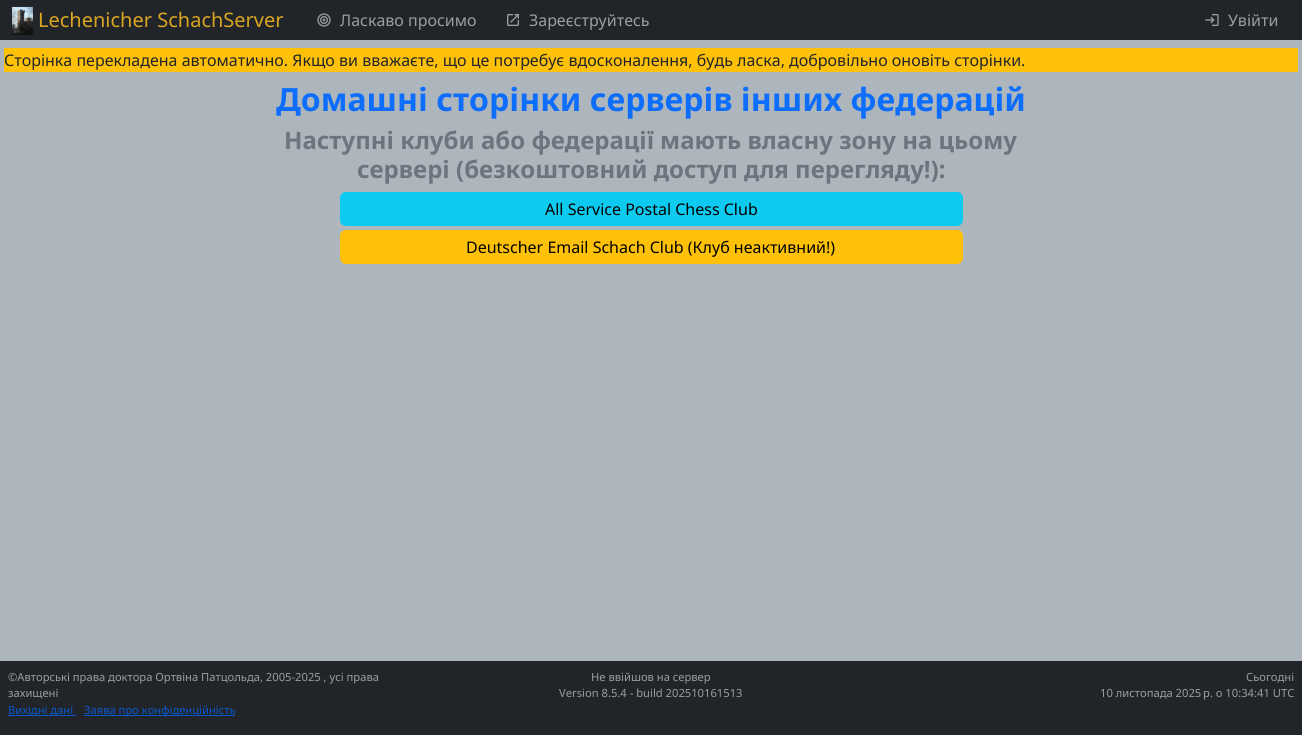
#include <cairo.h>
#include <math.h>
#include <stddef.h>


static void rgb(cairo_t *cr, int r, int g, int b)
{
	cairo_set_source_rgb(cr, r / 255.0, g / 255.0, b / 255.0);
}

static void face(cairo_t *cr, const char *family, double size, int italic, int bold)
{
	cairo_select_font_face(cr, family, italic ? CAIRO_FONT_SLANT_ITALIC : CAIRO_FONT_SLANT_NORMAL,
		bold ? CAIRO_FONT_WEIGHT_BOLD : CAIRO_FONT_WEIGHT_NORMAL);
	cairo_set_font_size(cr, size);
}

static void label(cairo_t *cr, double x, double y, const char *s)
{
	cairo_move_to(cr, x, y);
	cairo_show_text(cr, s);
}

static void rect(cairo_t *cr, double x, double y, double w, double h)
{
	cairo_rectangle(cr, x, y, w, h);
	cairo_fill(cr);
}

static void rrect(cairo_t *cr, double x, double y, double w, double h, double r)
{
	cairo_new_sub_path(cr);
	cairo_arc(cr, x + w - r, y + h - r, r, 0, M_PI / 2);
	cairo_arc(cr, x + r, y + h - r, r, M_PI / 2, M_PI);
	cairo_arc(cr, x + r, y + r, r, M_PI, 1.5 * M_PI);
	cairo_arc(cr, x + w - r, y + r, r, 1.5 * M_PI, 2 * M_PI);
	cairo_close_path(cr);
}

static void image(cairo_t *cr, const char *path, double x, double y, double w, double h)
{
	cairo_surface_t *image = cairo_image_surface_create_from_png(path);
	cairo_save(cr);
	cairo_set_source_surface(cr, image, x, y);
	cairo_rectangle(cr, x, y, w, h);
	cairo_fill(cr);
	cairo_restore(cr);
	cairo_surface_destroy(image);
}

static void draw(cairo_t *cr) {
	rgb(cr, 173, 181, 189);
	cairo_paint(cr);
	rgb(cr, 33, 37, 41);
	rect(cr, 0, 0, 1302, 40);
	image(cr, "image0.png", 12, 6, 21, 29);
	face(cr, "Noto Sans", 20, 0, 0);
	rgb(cr, 218, 165, 32);
	label(cr, 38, 27, "Lechenicher SchachServer");
	image(cr, "image1.png", 317, 13, 14, 14);
	face(cr, "Noto Sans", 16, 0, 0);
	rgb(cr, 155, 157, 159);
	label(cr, 340, 26, "Ласкаво просимо");
	image(cr, "image2.png", 507, 14, 12, 12);
	label(cr, 529, 26, "Зареєструйтесь");
	image(cr, "image3.png", 1205, 14, 14, 12);
	label(cr, 1228, 26, "Увійти");
	rgb(cr, 255, 193, 7);
	rect(cr, 4, 48, 1294, 24);
	rgb(cr, 33, 37, 41);
	label(cr, 4, 66, "Сторінка перекладена автоматично. Якщо ви вважаєте, що це потребує вдосконалення, будь ласка, добровільно оновіть сторінки.");
	face(cr, "Noto Sans", 32, 0, 1);
	rgb(cr, 13, 110, 253);
	label(cr, 276, 111, "Домашні сторінки серверів інших федерацій");
	face(cr, "Noto Sans", 24, 0, 1);
	rgb(cr, 108, 117, 125);
	label(cr, 284, 149, "Наступні клуби або федерації мають власну зону на цьому");
	label(cr, 357, 178, "сервері (безкоштовний доступ для перегляду!):");
	rgb(cr, 13, 202, 240);
	rrect(cr, 340.5, 192.5, 622, 33, 5.5);
	cairo_fill_preserve(cr);
	cairo_set_line_width(cr, 1);
	cairo_stroke(cr);
	face(cr, "Noto Sans", 16, 0, 0);
	rgb(cr, 0, 0, 0);
	label(cr, 545, 215, "All Service Postal Chess Club");
	rgb(cr, 255, 193, 7);
	rrect(cr, 340.5, 230.5, 622, 33, 5.5);
	cairo_fill_preserve(cr);
	cairo_stroke(cr);
	rgb(cr, 0, 0, 0);
	label(cr, 466, 253, "Deutscher Email Schach Club (Клуб неактивний!)");
	rgb(cr, 33, 37, 41);
	rect(cr, 0, 661, 1302, 74);
	face(cr, "Noto Sans", 11.2, 0, 0);
	rgb(cr, 155, 157, 159);
	label(cr, 8, 681, "©Авторські права доктора Ортвіна Патцольда, 2005-2025 , усі права");
	label(cr, 8, 697, "захищені");
	rgb(cr, 10, 88, 202);
	rect(cr, 8, 715, 68, 1);
	label(cr, 8, 714, "Вихідні дані");
	rect(cr, 84, 715, 151, 1);
	label(cr, 84, 714, "Заява про конфіденційність");
	rgb(cr, 155, 157, 159);
	label(cr, 591, 681, "Не ввійшов на сервер");
	label(cr, 559, 697, "Version 8.5.4 - build 202510161513");
	label(cr, 1246, 681, "Сьогодні");
	label(cr, 1100, 697, "10 листопада 2025 р. о 10:34:41 UTC");
}

int main(void) {
	cairo_surface_t *surface = cairo_image_surface_create(CAIRO_FORMAT_RGB24, 1302, 735);
	cairo_t *cr = cairo_create(surface);
	cairo_font_options_t *options = cairo_font_options_create();
	cairo_font_options_set_hint_metrics(options, CAIRO_HINT_METRICS_OFF);
	cairo_font_options_set_hint_style(options, CAIRO_HINT_STYLE_NONE);
	cairo_set_font_options(cr, options);
	cairo_set_miter_limit(cr, 4);
	draw(cr);
	cairo_surface_write_to_png(surface, "render.png");
	cairo_font_options_destroy(options);
	cairo_destroy(cr);
	cairo_surface_destroy(surface);
	return 0;
}
